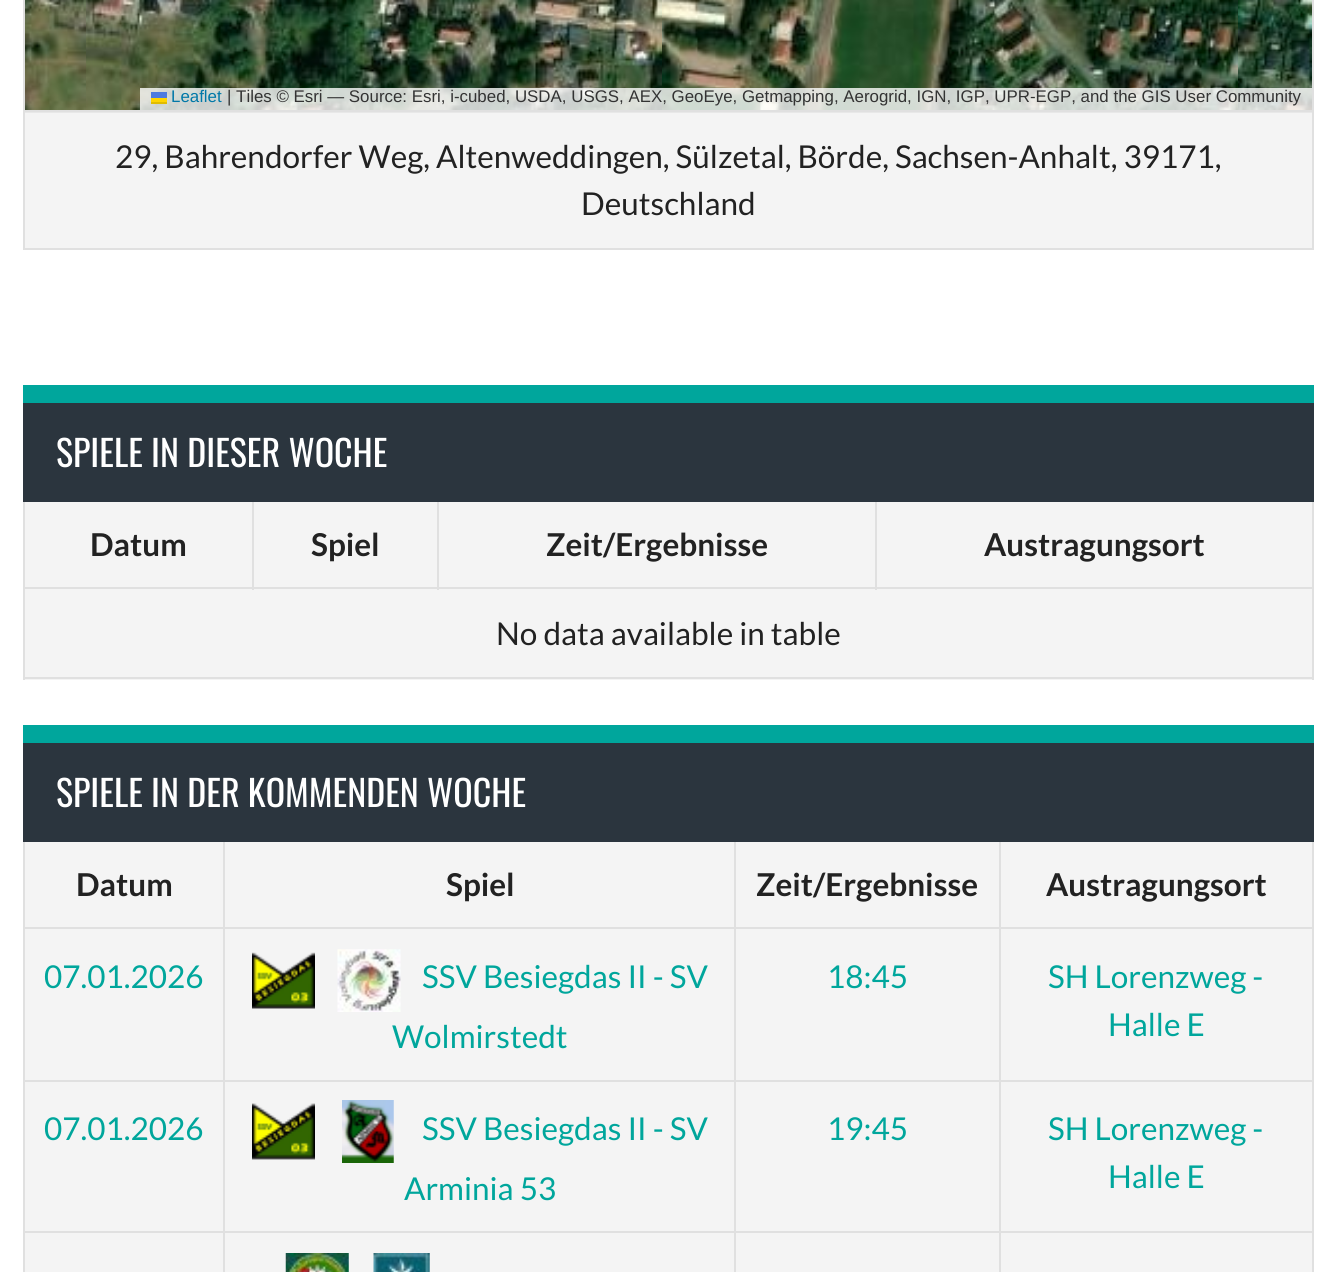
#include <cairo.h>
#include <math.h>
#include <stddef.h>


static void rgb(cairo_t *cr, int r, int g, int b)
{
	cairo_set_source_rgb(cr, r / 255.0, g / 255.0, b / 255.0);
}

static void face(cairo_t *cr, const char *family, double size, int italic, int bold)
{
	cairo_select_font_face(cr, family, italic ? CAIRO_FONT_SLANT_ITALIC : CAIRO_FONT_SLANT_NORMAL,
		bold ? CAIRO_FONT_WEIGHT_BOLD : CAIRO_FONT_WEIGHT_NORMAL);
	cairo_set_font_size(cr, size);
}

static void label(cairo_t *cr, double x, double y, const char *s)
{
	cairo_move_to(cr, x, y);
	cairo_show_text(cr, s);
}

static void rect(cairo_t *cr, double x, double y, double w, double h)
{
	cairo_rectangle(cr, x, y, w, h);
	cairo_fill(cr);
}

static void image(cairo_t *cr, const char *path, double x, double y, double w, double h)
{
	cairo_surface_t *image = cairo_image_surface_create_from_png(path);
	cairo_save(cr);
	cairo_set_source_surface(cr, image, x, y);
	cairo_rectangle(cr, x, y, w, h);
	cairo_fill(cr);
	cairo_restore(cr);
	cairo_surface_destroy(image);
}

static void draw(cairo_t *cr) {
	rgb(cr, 255, 255, 255);
	cairo_paint(cr);
	rgb(cr, 244, 244, 244);
	rect(cr, 25, 113, 1287, 135);
	rgb(cr, 224, 224, 224);
	rect(cr, 1312, 0, 2, 250);
	rect(cr, 23, 248, 1291, 2);
	rect(cr, 23, 0, 2, 250);
	rgb(cr, 232, 232, 232);
	rect(cr, 25, 112, 1287, 1);
	image(cr, "image0.png", 25, 0, 61, 110);
	image(cr, "image1.png", 86, 0, 576, 110);
	image(cr, "image2.png", 662, 0, 576, 110);
	image(cr, "image3.png", 1238, 0, 74, 110);
	cairo_set_source_rgba(cr, 1, 1, 1, 0.8);
	rect(cr, 140, 88, 1172, 22);
	face(cr, "Liberation Sans", 16.88, 0, 0);
	rgb(cr, 0, 120, 168);
	label(cr, 171, 102, "Leaflet");
	rgb(cr, 76, 123, 225);
	rect(cr, 151, 92, 16, 6);
	rgb(cr, 255, 213, 0);
	rect(cr, 151, 98, 16, 4);
	rgb(cr, 224, 188, 0);
	rect(cr, 151, 102, 16, 2);
	rgb(cr, 51, 51, 51);
	label(cr, 227, 102, "| Tiles © Esri — Source: Esri, i-cubed, USDA, USGS, AEX, GeoEye, Getmapping, Aerogrid, IGN, IGP, UPR-EGP, and the GIS User Community");
	rgb(cr, 224, 224, 224);
	rect(cr, 23, 110, 1291, 2);
	face(cr, "Lato", 31.5, 0, 0);
	rgb(cr, 34, 34, 34);
	label(cr, 115, 168, "29, Bahrendorfer Weg, Altenweddingen, Sülzetal, Börde, Sachsen-Anhalt, 39171,");
	label(cr, 581, 215, "Deutschland");
	rgb(cr, 224, 224, 224);
	rect(cr, 1312, 500, 2, 180);
	rgb(cr, 244, 244, 244);
	rect(cr, 25, 502, 1287, 178);
	rgb(cr, 224, 224, 224);
	rect(cr, 23, 677, 1291, 2);
	rect(cr, 23, 500, 2, 180);
	rect(cr, 23, 587, 1291, 2);
	rect(cr, 252, 500, 2, 90);
	rect(cr, 437, 500, 2, 90);
	rect(cr, 875, 500, 2, 90);
	rgb(cr, 43, 53, 62);
	rect(cr, 23, 403, 1291, 99);
	rgb(cr, 0, 166, 156);
	rect(cr, 23, 385, 1291, 18);
	face(cr, "Oswald", 36, 0, 0);
	rgb(cr, 255, 255, 255);
	label(cr, 56, 467, "SPIELE IN DIESER WOCHE");
	face(cr, "Lato", 31.5, 0, 1);
	rgb(cr, 34, 34, 34);
	label(cr, 90, 556, "Datum");
	label(cr, 311, 556, "Spiel");
	label(cr, 546, 556, "Zeit/Ergebnisse");
	label(cr, 984, 556, "Austragungsort");
	face(cr, "Lato", 31.5, 0, 0);
	label(cr, 496, 645, "No data available in table");
	rgb(cr, 224, 224, 224);
	rect(cr, 1312, 839, 2, 433);
	rect(cr, 23, 839, 2, 433);
	rgb(cr, 244, 244, 244);
	rect(cr, 25, 842, 1287, 430);
	rgb(cr, 224, 224, 224);
	rect(cr, 999, 927, 315, 2);
	rect(cr, 999, 1080, 315, 2);
	rect(cr, 999, 1231, 315, 2);
	rect(cr, 999, 1231, 2, 41);
	rect(cr, 734, 1231, 267, 2);
	rect(cr, 999, 1080, 2, 153);
	rect(cr, 734, 1080, 267, 2);
	rect(cr, 999, 927, 2, 155);
	rect(cr, 734, 927, 267, 2);
	rect(cr, 734, 1231, 2, 41);
	rect(cr, 223, 1231, 513, 2);
	rect(cr, 734, 1080, 2, 153);
	rect(cr, 223, 1080, 513, 2);
	rect(cr, 734, 927, 2, 155);
	rect(cr, 223, 927, 513, 2);
	rect(cr, 223, 1231, 2, 41);
	rect(cr, 23, 1231, 202, 2);
	rect(cr, 223, 1080, 2, 153);
	rect(cr, 23, 1080, 202, 2);
	rect(cr, 223, 927, 2, 155);
	rect(cr, 23, 927, 202, 2);
	rect(cr, 223, 839, 2, 90);
	rect(cr, 734, 839, 2, 90);
	rect(cr, 999, 839, 2, 90);
	rgb(cr, 43, 53, 62);
	rect(cr, 23, 743, 1291, 99);
	rgb(cr, 0, 166, 156);
	rect(cr, 23, 725, 1291, 18);
	face(cr, "Oswald", 36, 0, 0);
	rgb(cr, 255, 255, 255);
	label(cr, 56, 807, "SPIELE IN DER KOMMENDEN WOCHE");
	face(cr, "Lato", 31.5, 0, 1);
	rgb(cr, 34, 34, 34);
	label(cr, 76, 896, "Datum");
	label(cr, 446, 896, "Spiel");
	label(cr, 756, 896, "Zeit/Ergebnisse");
	label(cr, 1046, 896, "Austragungsort");
	face(cr, "Lato", 31.5, 0, 0);
	rgb(cr, 0, 166, 156);
	label(cr, 44, 988, "07.01.2026");
	image(cr, "image4.png", 252, 952, 63, 57);
	image(cr, "image5.png", 337, 949, 64, 63);
	label(cr, 422, 988, "SSV Besiegdas II - SV");
	label(cr, 392, 1048, "Wolmirstedt");
	label(cr, 827, 988, "18:45");
	label(cr, 1048, 988, "SH Lorenzweg -");
	label(cr, 1108, 1036, "Halle E");
	label(cr, 44, 1140, "07.01.2026");
	image(cr, "image6.png", 252, 1103, 63, 57);
	image(cr, "image7.png", 342, 1100, 52, 63);
	label(cr, 422, 1140, "SSV Besiegdas II - SV");
	label(cr, 404, 1200, "Arminia 53");
	label(cr, 827, 1140, "19:45");
	label(cr, 1048, 1140, "SH Lorenzweg -");
	label(cr, 1108, 1188, "Halle E");
	image(cr, "image8.png", 285, 1253, 64, 19);
	image(cr, "image9.png", 373, 1253, 57, 19);
}

int main(void) {
	cairo_surface_t *surface = cairo_image_surface_create(CAIRO_FORMAT_RGB24, 1335, 1272);
	cairo_t *cr = cairo_create(surface);
	cairo_font_options_t *options = cairo_font_options_create();
	cairo_font_options_set_hint_metrics(options, CAIRO_HINT_METRICS_OFF);
	cairo_font_options_set_hint_style(options, CAIRO_HINT_STYLE_NONE);
	cairo_set_font_options(cr, options);
	cairo_set_miter_limit(cr, 4);
	draw(cr);
	cairo_surface_write_to_png(surface, "render.png");
	cairo_font_options_destroy(options);
	cairo_destroy(cr);
	cairo_surface_destroy(surface);
	return 0;
}
